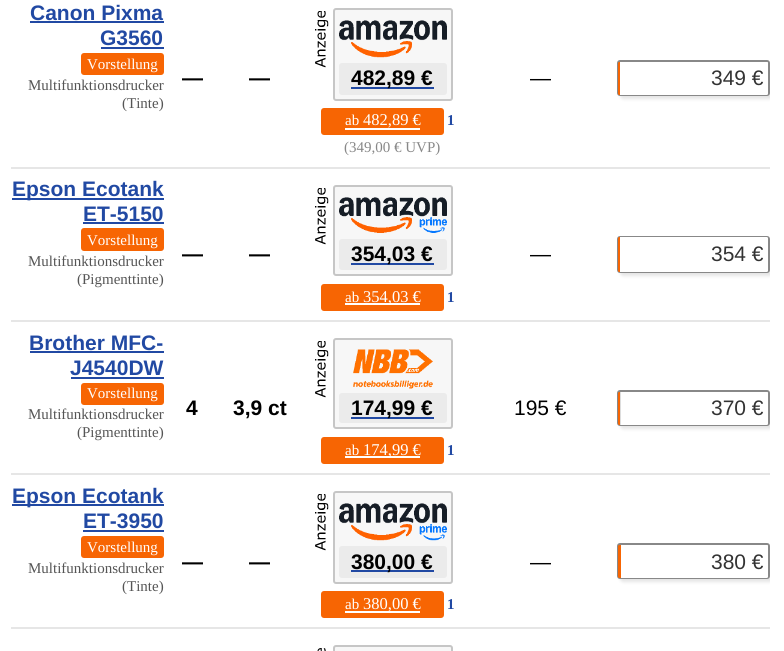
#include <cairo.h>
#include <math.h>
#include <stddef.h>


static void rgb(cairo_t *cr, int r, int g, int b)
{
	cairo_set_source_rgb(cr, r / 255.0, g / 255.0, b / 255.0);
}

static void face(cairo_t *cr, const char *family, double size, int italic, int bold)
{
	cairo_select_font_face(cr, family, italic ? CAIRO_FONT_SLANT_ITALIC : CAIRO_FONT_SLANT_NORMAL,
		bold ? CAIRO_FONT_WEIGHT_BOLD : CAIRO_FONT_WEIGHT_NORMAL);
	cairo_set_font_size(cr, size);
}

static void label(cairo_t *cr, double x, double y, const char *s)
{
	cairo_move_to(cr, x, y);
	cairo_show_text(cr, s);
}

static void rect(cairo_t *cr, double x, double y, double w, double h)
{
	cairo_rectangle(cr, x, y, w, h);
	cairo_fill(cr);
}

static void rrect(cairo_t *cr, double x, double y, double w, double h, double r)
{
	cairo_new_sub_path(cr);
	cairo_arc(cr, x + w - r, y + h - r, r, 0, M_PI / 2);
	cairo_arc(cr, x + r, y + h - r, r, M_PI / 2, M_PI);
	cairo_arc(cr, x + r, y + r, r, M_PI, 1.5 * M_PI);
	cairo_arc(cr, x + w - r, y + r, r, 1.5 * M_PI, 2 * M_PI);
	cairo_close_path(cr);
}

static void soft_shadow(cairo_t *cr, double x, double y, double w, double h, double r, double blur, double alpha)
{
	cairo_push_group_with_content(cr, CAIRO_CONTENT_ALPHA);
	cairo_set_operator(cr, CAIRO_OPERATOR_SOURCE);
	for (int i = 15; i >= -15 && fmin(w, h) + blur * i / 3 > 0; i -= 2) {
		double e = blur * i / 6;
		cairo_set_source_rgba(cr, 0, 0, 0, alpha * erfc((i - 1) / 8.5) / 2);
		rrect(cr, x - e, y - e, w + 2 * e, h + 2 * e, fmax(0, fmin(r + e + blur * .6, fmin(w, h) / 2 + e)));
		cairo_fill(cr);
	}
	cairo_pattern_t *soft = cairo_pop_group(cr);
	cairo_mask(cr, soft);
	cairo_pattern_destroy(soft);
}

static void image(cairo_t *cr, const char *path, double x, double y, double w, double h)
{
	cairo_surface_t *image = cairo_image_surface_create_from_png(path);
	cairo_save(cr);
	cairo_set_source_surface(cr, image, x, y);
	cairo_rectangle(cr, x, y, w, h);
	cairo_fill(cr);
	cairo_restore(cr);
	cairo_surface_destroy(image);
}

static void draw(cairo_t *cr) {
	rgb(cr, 255, 255, 255);
	cairo_paint(cr);
	face(cr, "Liberation Sans", 21, 0, 1);
	rgb(cr, 33, 73, 163);
	label(cr, 30, 20, "Canon Pixma");
	rect(cr, 30, 21, 134, 2);
	label(cr, 100, 45, "G3560");
	rect(cr, 101, 47, 63, 2);
	rgb(cr, 247, 101, 3);
	rrect(cr, 81, 53, 83, 22, 3);
	cairo_fill(cr);
	face(cr, "Liberation Serif", 15, 0, 0);
	rgb(cr, 255, 255, 255);
	label(cr, 87, 69, "Vorstellung");
	rgb(cr, 85, 85, 85);
	label(cr, 28, 90, "Multifunktionsdrucker");
	label(cr, 122, 108, "(Tinte)");
	face(cr, "Liberation Sans", 21, 0, 1);
	rgb(cr, 0, 0, 0);
	label(cr, 182, 85, "—");
	label(cr, 249, 85, "—");
	image(cr, "image0.png", 315, 11, 14, 57);
	rgb(cr, 247, 247, 247);
	rrect(cr, 333, 8, 120, 93, 3);
	cairo_fill(cr);
	rrect(cr, 334, 9, 118, 91, 2);
	cairo_set_source_rgba(cr, 0, 0, 0, 0.2);
	cairo_stroke(cr);
	image(cr, "image1.png", 339, 20, 108, 38);
	rgb(cr, 235, 235, 235);
	rrect(cr, 339, 63, 108, 32, 3);
	cairo_fill(cr);
	rgb(cr, 33, 73, 163);
	rect(cr, 351, 87, 83, 2);
	rgb(cr, 0, 0, 0);
	label(cr, 351, 85, "482,89 €");
	rgb(cr, 247, 101, 3);
	rrect(cr, 321, 108, 123, 27, 3);
	cairo_fill(cr);
	face(cr, "Liberation Serif", 15, 0, 0);
	rgb(cr, 255, 255, 255);
	label(cr, 345, 125, "ab");
	rect(cr, 345, 128, 75, 2);
	face(cr, "Liberation Serif", 16.5, 0, 0);
	label(cr, 363, 125, "482,89 €");
	face(cr, "Liberation Serif", 15, 0, 1);
	rgb(cr, 33, 73, 163);
	label(cr, 447, 125, "1");
	face(cr, "Liberation Serif", 15, 0, 0);
	rgb(cr, 136, 136, 136);
	label(cr, 344, 152, "(349,00 € UVP)");
	face(cr, "Liberation Sans", 21, 0, 0);
	rgb(cr, 0, 0, 0);
	label(cr, 530, 85, "—");
	cairo_save(cr);
	cairo_rectangle(cr, 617, 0, 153, 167);
	cairo_clip(cr);
	rgb(cr, 0, 0, 0);
	soft_shadow(cr, 620, 63, 153, 36, 3, 1.5, 0.1);
	cairo_restore(cr);
	rrect(cr, 618, 61, 151, 34, 2);
	rgb(cr, 136, 136, 136);
	cairo_stroke(cr);
	rgb(cr, 247, 101, 3);
	cairo_new_path(cr);
	cairo_move_to(cr, 619.5, 62);
	cairo_line_to(cr, 620, 62);
	cairo_line_to(cr, 620, 95);
	cairo_line_to(cr, 619.5, 95);
	cairo_curve_to(cr, 618.5, 95, 618, 94.5, 618, 93.5);
	cairo_line_to(cr, 618, 63.5);
	cairo_curve_to(cr, 618, 62.5, 618.5, 62, 619.5, 62);
	cairo_close_path(cr);
	cairo_fill(cr);
	rgb(cr, 255, 255, 255);
	cairo_new_path(cr);
	cairo_move_to(cr, 620, 62);
	cairo_line_to(cr, 766.5, 62);
	cairo_curve_to(cr, 767.5, 62, 768, 62.5, 768, 63.5);
	cairo_line_to(cr, 768, 93.5);
	cairo_curve_to(cr, 768, 94.5, 767.5, 95, 766.5, 95);
	cairo_line_to(cr, 620, 95);
	cairo_close_path(cr);
	cairo_fill(cr);
	rgb(cr, 51, 51, 51);
	label(cr, 711, 85, "349 €");
	rgb(cr, 33, 73, 163);
	rect(cr, 12, 198, 152, 2);
	face(cr, "Liberation Sans", 21, 0, 1);
	label(cr, 12, 196, "Epson Ecotank");
	label(cr, 83, 221, "ET-5150");
	rect(cr, 83, 222, 81, 2);
	rgb(cr, 247, 101, 3);
	rrect(cr, 81, 228, 83, 23, 3);
	cairo_fill(cr);
	face(cr, "Liberation Serif", 15, 0, 0);
	rgb(cr, 255, 255, 255);
	label(cr, 87, 245, "Vorstellung");
	rgb(cr, 85, 85, 85);
	label(cr, 28, 266, "Multifunktionsdrucker");
	label(cr, 77, 284, "(Pigmenttinte)");
	rgb(cr, 230, 230, 230);
	rect(cr, 11, 167, 759, 2);
	face(cr, "Liberation Sans", 21, 0, 1);
	rgb(cr, 0, 0, 0);
	label(cr, 182, 261, "—");
	label(cr, 249, 261, "—");
	image(cr, "image0.png", 315, 188, 14, 57);
	rgb(cr, 247, 247, 247);
	rrect(cr, 333, 185, 120, 91, 3);
	cairo_fill(cr);
	rrect(cr, 334, 186, 118, 89, 2);
	cairo_set_source_rgba(cr, 0, 0, 0, 0.2);
	cairo_stroke(cr);
	image(cr, "image2.png", 339, 197, 108, 36);
	rgb(cr, 235, 235, 235);
	rrect(cr, 339, 239, 108, 31, 3);
	cairo_fill(cr);
	rgb(cr, 33, 73, 163);
	rect(cr, 351, 263, 83, 2);
	rgb(cr, 0, 0, 0);
	label(cr, 351, 261, "354,03 €");
	rgb(cr, 247, 101, 3);
	rrect(cr, 321, 284, 123, 27, 3);
	cairo_fill(cr);
	face(cr, "Liberation Serif", 15, 0, 0);
	rgb(cr, 255, 255, 255);
	label(cr, 345, 302, "ab");
	rect(cr, 345, 303, 75, 2);
	face(cr, "Liberation Serif", 16.5, 0, 0);
	label(cr, 363, 302, "354,03 €");
	face(cr, "Liberation Serif", 15, 0, 1);
	rgb(cr, 33, 73, 163);
	label(cr, 447, 302, "1");
	face(cr, "Liberation Sans", 21, 0, 0);
	rgb(cr, 0, 0, 0);
	label(cr, 530, 261, "—");
	cairo_save(cr);
	cairo_rectangle(cr, 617, 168, 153, 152);
	cairo_clip(cr);
	rgb(cr, 0, 0, 0);
	soft_shadow(cr, 620, 239, 153, 37, 3, 1.5, 0.1);
	cairo_restore(cr);
	rrect(cr, 618, 237, 151, 35, 2);
	rgb(cr, 136, 136, 136);
	cairo_stroke(cr);
	rgb(cr, 247, 101, 3);
	cairo_new_path(cr);
	cairo_move_to(cr, 619.5, 237);
	cairo_line_to(cr, 620, 237);
	cairo_line_to(cr, 620, 272);
	cairo_line_to(cr, 619.5, 272);
	cairo_curve_to(cr, 618.5, 272, 618, 271.5, 618, 270.5);
	cairo_line_to(cr, 618, 238.5);
	cairo_curve_to(cr, 618, 237.5, 618.5, 237, 619.5, 237);
	cairo_close_path(cr);
	cairo_fill(cr);
	rgb(cr, 255, 255, 255);
	cairo_new_path(cr);
	cairo_move_to(cr, 620, 237);
	cairo_line_to(cr, 766.5, 237);
	cairo_curve_to(cr, 767.5, 237, 768, 237.5, 768, 238.5);
	cairo_line_to(cr, 768, 270.5);
	cairo_curve_to(cr, 768, 271.5, 767.5, 272, 766.5, 272);
	cairo_line_to(cr, 620, 272);
	cairo_close_path(cr);
	cairo_fill(cr);
	rgb(cr, 51, 51, 51);
	label(cr, 711, 261, "354 €");
	face(cr, "Liberation Sans", 21, 0, 1);
	rgb(cr, 33, 73, 163);
	label(cr, 29, 350, "Brother MFC-");
	rect(cr, 30, 351, 134, 2);
	label(cr, 70, 375, "J4540DW");
	rect(cr, 71, 377, 93, 2);
	rgb(cr, 247, 101, 3);
	rrect(cr, 81, 383, 83, 22, 3);
	cairo_fill(cr);
	face(cr, "Liberation Serif", 15, 0, 0);
	rgb(cr, 255, 255, 255);
	label(cr, 87, 398, "Vorstellung");
	rgb(cr, 85, 85, 85);
	label(cr, 28, 419, "Multifunktionsdrucker");
	label(cr, 77, 437, "(Pigmenttinte)");
	rgb(cr, 230, 230, 230);
	rect(cr, 11, 320, 759, 2);
	face(cr, "Liberation Sans", 21, 0, 1);
	rgb(cr, 0, 0, 0);
	label(cr, 186, 415, "4");
	label(cr, 233, 415, "3,9 ct");
	image(cr, "image0.png", 315, 341, 14, 57);
	rgb(cr, 247, 247, 247);
	rrect(cr, 333, 338, 120, 91, 3);
	cairo_fill(cr);
	rrect(cr, 334, 339, 118, 89, 2);
	cairo_set_source_rgba(cr, 0, 0, 0, 0.2);
	cairo_stroke(cr);
	image(cr, "image3.png", 353, 349, 80, 40);
	rgb(cr, 235, 235, 235);
	rrect(cr, 339, 393, 108, 30, 3);
	cairo_fill(cr);
	rgb(cr, 33, 73, 163);
	rect(cr, 351, 417, 83, 2);
	rgb(cr, 0, 0, 0);
	label(cr, 351, 415, "174,99 €");
	rgb(cr, 247, 101, 3);
	rrect(cr, 321, 437, 123, 27, 3);
	cairo_fill(cr);
	face(cr, "Liberation Serif", 15, 0, 0);
	rgb(cr, 255, 255, 255);
	label(cr, 345, 455, "ab");
	rect(cr, 345, 456, 75, 2);
	face(cr, "Liberation Serif", 16.5, 0, 0);
	label(cr, 363, 455, "174,99 €");
	face(cr, "Liberation Serif", 15, 0, 1);
	rgb(cr, 33, 73, 163);
	label(cr, 447, 455, "1");
	face(cr, "Liberation Sans", 21, 0, 0);
	rgb(cr, 0, 0, 0);
	label(cr, 514, 415, "195 €");
	cairo_save(cr);
	cairo_rectangle(cr, 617, 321, 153, 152);
	cairo_clip(cr);
	rgb(cr, 0, 0, 0);
	soft_shadow(cr, 620, 393, 153, 36, 3, 1.5, 0.1);
	cairo_restore(cr);
	rrect(cr, 618, 391, 151, 34, 2);
	rgb(cr, 136, 136, 136);
	cairo_stroke(cr);
	rgb(cr, 247, 101, 3);
	cairo_new_path(cr);
	cairo_move_to(cr, 619.5, 392);
	cairo_line_to(cr, 620, 392);
	cairo_line_to(cr, 620, 425);
	cairo_line_to(cr, 619.5, 425);
	cairo_curve_to(cr, 618.5, 425, 618, 424.5, 618, 423.5);
	cairo_line_to(cr, 618, 393.5);
	cairo_curve_to(cr, 618, 392.5, 618.5, 392, 619.5, 392);
	cairo_close_path(cr);
	cairo_fill(cr);
	rgb(cr, 221, 221, 221);
	rect(cr, 620, 392, 1, 33);
	rgb(cr, 255, 255, 255);
	cairo_new_path(cr);
	cairo_move_to(cr, 621, 392);
	cairo_line_to(cr, 766.5, 392);
	cairo_curve_to(cr, 767.5, 392, 768, 392.5, 768, 393.5);
	cairo_line_to(cr, 768, 423.5);
	cairo_curve_to(cr, 768, 424.5, 767.5, 425, 766.5, 425);
	cairo_line_to(cr, 621, 425);
	cairo_close_path(cr);
	cairo_fill(cr);
	rgb(cr, 51, 51, 51);
	label(cr, 711, 415, "370 €");
	rgb(cr, 33, 73, 163);
	rect(cr, 12, 504, 152, 2);
	face(cr, "Liberation Sans", 21, 0, 1);
	label(cr, 12, 503, "Epson Ecotank");
	label(cr, 83, 528, "ET-3950");
	rect(cr, 83, 530, 81, 2);
	rgb(cr, 247, 101, 3);
	rrect(cr, 81, 536, 83, 22, 3);
	cairo_fill(cr);
	face(cr, "Liberation Serif", 15, 0, 0);
	rgb(cr, 255, 255, 255);
	label(cr, 87, 552, "Vorstellung");
	rgb(cr, 85, 85, 85);
	label(cr, 28, 573, "Multifunktionsdrucker");
	label(cr, 122, 591, "(Tinte)");
	rgb(cr, 230, 230, 230);
	rect(cr, 11, 473, 759, 2);
	face(cr, "Liberation Sans", 21, 0, 1);
	rgb(cr, 0, 0, 0);
	label(cr, 182, 569, "—");
	label(cr, 249, 569, "—");
	image(cr, "image4.png", 315, 494, 14, 57);
	rgb(cr, 247, 247, 247);
	rrect(cr, 333, 491, 120, 93, 3);
	cairo_fill(cr);
	rrect(cr, 334, 492, 118, 91, 2);
	cairo_set_source_rgba(cr, 0, 0, 0, 0.2);
	cairo_stroke(cr);
	image(cr, "image5.png", 339, 503, 108, 38);
	rgb(cr, 235, 235, 235);
	rrect(cr, 339, 546, 108, 32, 3);
	cairo_fill(cr);
	rgb(cr, 33, 73, 163);
	rect(cr, 351, 570, 83, 2);
	rgb(cr, 0, 0, 0);
	label(cr, 351, 569, "380,00 €");
	rgb(cr, 247, 101, 3);
	rrect(cr, 321, 591, 123, 27, 3);
	cairo_fill(cr);
	face(cr, "Liberation Serif", 15, 0, 0);
	rgb(cr, 255, 255, 255);
	label(cr, 345, 609, "ab");
	rect(cr, 345, 611, 75, 2);
	face(cr, "Liberation Serif", 16.5, 0, 0);
	label(cr, 363, 609, "380,00 €");
	face(cr, "Liberation Serif", 15, 0, 1);
	rgb(cr, 33, 73, 163);
	label(cr, 447, 609, "1");
	face(cr, "Liberation Sans", 21, 0, 0);
	rgb(cr, 0, 0, 0);
	label(cr, 530, 569, "—");
	cairo_save(cr);
	cairo_rectangle(cr, 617, 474, 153, 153);
	cairo_clip(cr);
	rgb(cr, 0, 0, 0);
	soft_shadow(cr, 620, 546, 153, 36, 3, 1.5, 0.1);
	cairo_restore(cr);
	rrect(cr, 618, 544, 151, 34, 2);
	rgb(cr, 136, 136, 136);
	cairo_stroke(cr);
	rgb(cr, 247, 101, 3);
	cairo_new_path(cr);
	cairo_move_to(cr, 619.5, 545);
	cairo_line_to(cr, 621, 545);
	cairo_line_to(cr, 621, 578);
	cairo_line_to(cr, 619.5, 578);
	cairo_curve_to(cr, 618.5, 578, 618, 577.5, 618, 576.5);
	cairo_line_to(cr, 618, 546.5);
	cairo_curve_to(cr, 618, 545.5, 618.5, 545, 619.5, 545);
	cairo_close_path(cr);
	cairo_fill(cr);
	rgb(cr, 255, 255, 255);
	cairo_new_path(cr);
	cairo_move_to(cr, 621, 545);
	cairo_line_to(cr, 766.5, 545);
	cairo_curve_to(cr, 767.5, 545, 768, 545.5, 768, 546.5);
	cairo_line_to(cr, 768, 576.5);
	cairo_curve_to(cr, 768, 577.5, 767.5, 578, 766.5, 578);
	cairo_line_to(cr, 621, 578);
	cairo_close_path(cr);
	cairo_fill(cr);
	rgb(cr, 51, 51, 51);
	label(cr, 711, 569, "380 €");
	rgb(cr, 230, 230, 230);
	rect(cr, 11, 627, 759, 2);
	image(cr, "image6.png", 317, 648, 9, 3);
	rgb(cr, 247, 247, 247);
	rrect(cr, 333, 645, 120, 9, 3);
	cairo_fill(cr);
	rrect(cr, 334, 646, 118, 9, 2);
	cairo_set_source_rgba(cr, 0, 0, 0, 0.2);
	cairo_stroke(cr);
}

int main(void) {
	cairo_surface_t *surface = cairo_image_surface_create(CAIRO_FORMAT_RGB24, 784, 651);
	cairo_t *cr = cairo_create(surface);
	cairo_font_options_t *options = cairo_font_options_create();
	cairo_font_options_set_hint_metrics(options, CAIRO_HINT_METRICS_OFF);
	cairo_font_options_set_hint_style(options, CAIRO_HINT_STYLE_NONE);
	cairo_set_font_options(cr, options);
	cairo_set_miter_limit(cr, 4);
	draw(cr);
	cairo_surface_write_to_png(surface, "render.png");
	cairo_font_options_destroy(options);
	cairo_destroy(cr);
	cairo_surface_destroy(surface);
	return 0;
}
